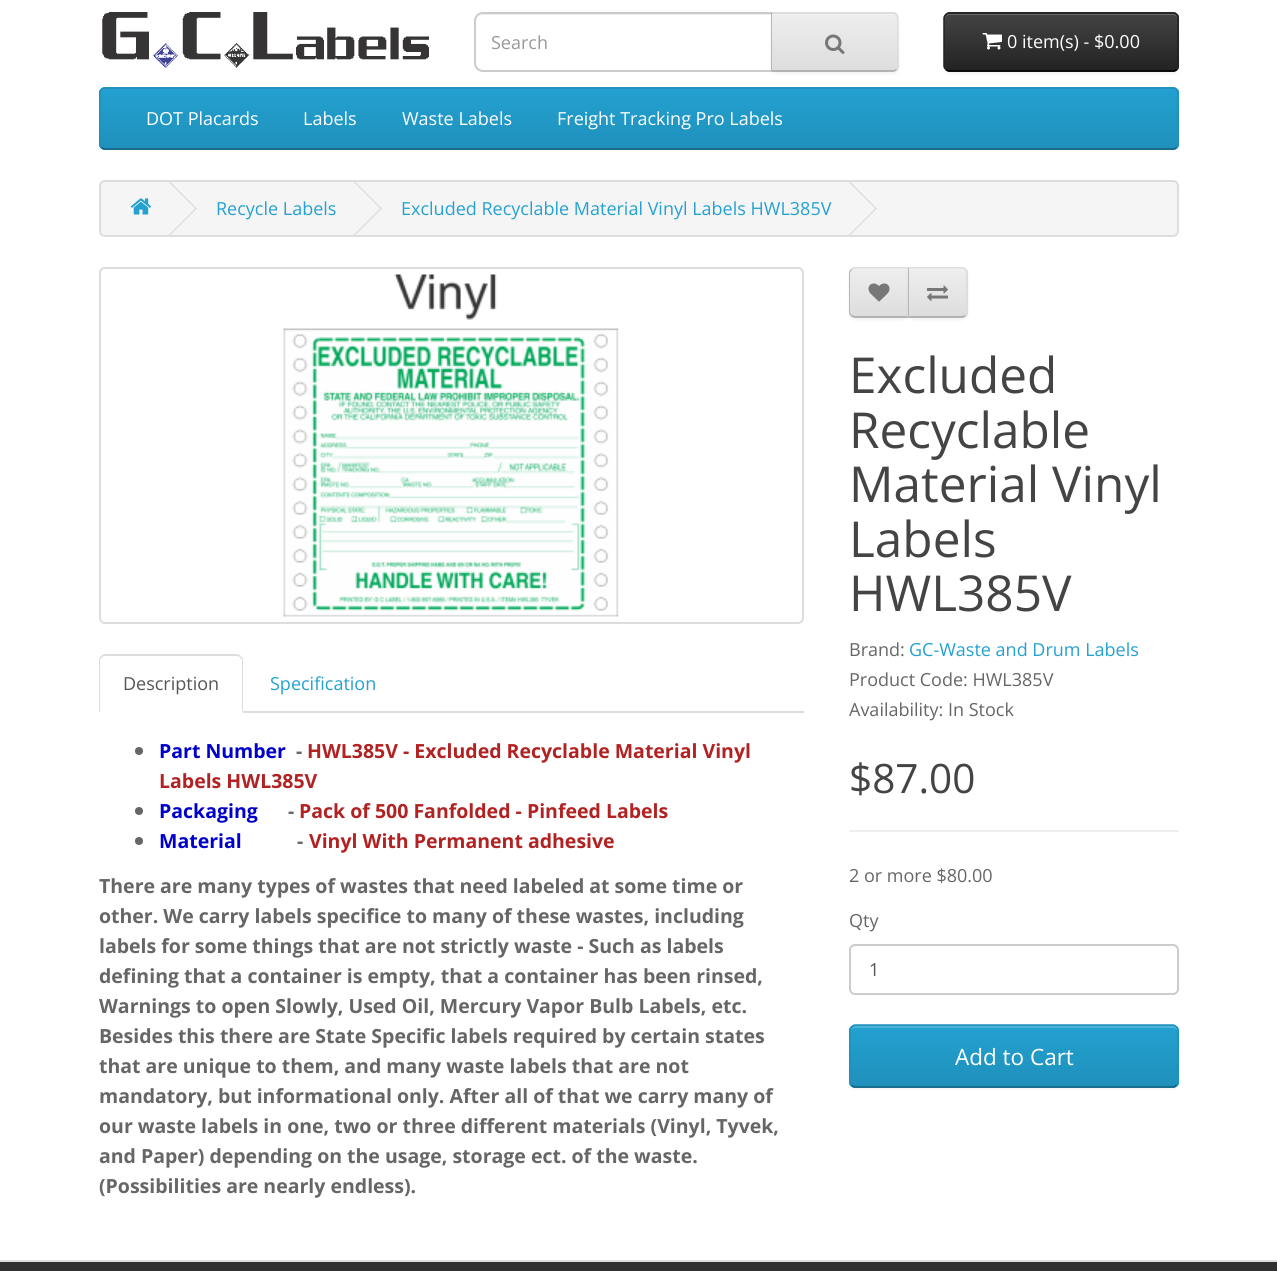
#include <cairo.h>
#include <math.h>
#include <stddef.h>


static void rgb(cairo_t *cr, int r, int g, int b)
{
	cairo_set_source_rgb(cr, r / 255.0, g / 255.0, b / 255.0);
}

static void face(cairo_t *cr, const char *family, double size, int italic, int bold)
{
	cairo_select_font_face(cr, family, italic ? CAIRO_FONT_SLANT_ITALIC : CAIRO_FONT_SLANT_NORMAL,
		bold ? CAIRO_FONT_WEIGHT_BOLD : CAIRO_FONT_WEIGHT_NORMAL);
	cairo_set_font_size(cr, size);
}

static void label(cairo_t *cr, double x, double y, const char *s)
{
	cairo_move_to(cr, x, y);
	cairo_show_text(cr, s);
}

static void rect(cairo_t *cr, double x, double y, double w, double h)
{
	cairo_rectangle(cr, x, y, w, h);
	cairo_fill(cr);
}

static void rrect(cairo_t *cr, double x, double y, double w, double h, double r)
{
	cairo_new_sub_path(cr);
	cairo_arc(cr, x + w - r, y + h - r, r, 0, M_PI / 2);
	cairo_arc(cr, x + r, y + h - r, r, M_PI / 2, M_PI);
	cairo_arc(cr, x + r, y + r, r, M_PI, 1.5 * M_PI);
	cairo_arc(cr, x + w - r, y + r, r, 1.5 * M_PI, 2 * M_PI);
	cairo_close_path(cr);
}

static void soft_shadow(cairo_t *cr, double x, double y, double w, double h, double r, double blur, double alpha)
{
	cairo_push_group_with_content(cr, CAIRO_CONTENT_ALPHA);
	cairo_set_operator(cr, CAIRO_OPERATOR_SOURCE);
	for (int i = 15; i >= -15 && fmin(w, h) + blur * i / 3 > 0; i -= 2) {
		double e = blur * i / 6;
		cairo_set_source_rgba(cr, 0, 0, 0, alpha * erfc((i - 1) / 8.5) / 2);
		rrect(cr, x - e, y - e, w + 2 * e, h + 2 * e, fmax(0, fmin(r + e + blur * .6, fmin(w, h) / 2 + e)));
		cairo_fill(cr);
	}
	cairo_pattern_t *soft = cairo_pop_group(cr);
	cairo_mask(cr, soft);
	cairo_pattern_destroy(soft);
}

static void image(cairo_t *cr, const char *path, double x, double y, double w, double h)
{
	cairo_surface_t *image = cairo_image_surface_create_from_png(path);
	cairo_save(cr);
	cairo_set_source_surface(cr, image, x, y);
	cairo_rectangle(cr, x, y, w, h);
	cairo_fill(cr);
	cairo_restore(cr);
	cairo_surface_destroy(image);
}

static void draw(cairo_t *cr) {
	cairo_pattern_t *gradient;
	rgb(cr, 255, 255, 255);
	cairo_paint(cr);
	image(cr, "image0.png", 102, 12, 327, 56);
	rgb(cr, 236, 236, 236);
	cairo_new_path(cr);
	cairo_move_to(cr, 483, 15);
	cairo_line_to(cr, 771, 15);
	cairo_line_to(cr, 771, 14);
	cairo_line_to(cr, 484, 14);
	cairo_curve_to(cr, 480, 14, 476, 18, 476, 22);
	cairo_curve_to(cr, 476, 18, 479, 15, 483, 15);
	cairo_close_path(cr);
	cairo_fill(cr);
	cairo_new_path(cr);
	cairo_move_to(cr, 483, 13);
	cairo_line_to(cr, 772, 13);
	cairo_line_to(cr, 772, 71);
	cairo_line_to(cr, 483, 71);
	cairo_curve_to(cr, 478.5, 71, 475, 67.5, 475, 63);
	cairo_line_to(cr, 475, 21);
	cairo_curve_to(cr, 475, 16.5, 478.5, 13, 483, 13);
	cairo_close_path(cr);
	rgb(cr, 204, 204, 204);
	cairo_stroke(cr);
	face(cr, "Open Sans", 18, 0, 0);
	rgb(cr, 153, 153, 153);
	label(cr, 491, 49, "Search");
	rgb(cr, 0, 0, 0);
	soft_shadow(cr, 771, 14, 128, 60, 6, 1.5, 0.05);
	rgb(cr, 231, 231, 231);
	cairo_new_path(cr);
	cairo_move_to(cr, 771, 12);
	cairo_line_to(cr, 893, 12);
	cairo_curve_to(cr, 896.5, 12, 899, 14.5, 899, 18);
	cairo_line_to(cr, 899, 66);
	cairo_curve_to(cr, 899, 69.5, 896.5, 72, 893, 72);
	cairo_line_to(cr, 771, 72);
	cairo_close_path(cr);
	cairo_fill(cr);
	cairo_save(cr);
	cairo_new_path(cr);
	cairo_move_to(cr, 771, 12);
	cairo_line_to(cr, 893, 12);
	cairo_curve_to(cr, 896.5, 12, 899, 14.5, 899, 18);
	cairo_line_to(cr, 899, 66);
	cairo_curve_to(cr, 899, 69.5, 896.5, 72, 893, 72);
	cairo_line_to(cr, 771, 72);
	cairo_close_path(cr);
	cairo_clip(cr);
	gradient = cairo_pattern_create_linear(835, 13, 835, 71);
	cairo_pattern_add_color_stop_rgba(gradient, 0, 0.933, 0.933, 0.933, 1);
	cairo_pattern_add_color_stop_rgba(gradient, 1, 0.867, 0.867, 0.867, 1);
	cairo_set_source(cr, gradient);
	cairo_pattern_destroy(gradient);
	rect(cr, 772, 14, 127, 57);
	cairo_restore(cr);
	rgb(cr, 241, 241, 241);
	cairo_new_path(cr);
	cairo_move_to(cr, 773, 14);
	cairo_line_to(cr, 773, 15);
	cairo_line_to(cr, 892, 15);
	cairo_curve_to(cr, 895, 15, 897, 17, 897, 20);
	cairo_curve_to(cr, 897, 17, 895, 14, 892, 14);
	cairo_close_path(cr);
	cairo_fill(cr);
	rgb(cr, 221, 221, 221);
	cairo_new_path(cr);
	cairo_move_to(cr, 771, 12);
	cairo_line_to(cr, 773, 14);
	cairo_line_to(cr, 892, 14);
	cairo_curve_to(cr, 893, 14, 895, 14, 895, 15);
	cairo_line_to(cr, 897, 14);
	cairo_curve_to(cr, 896, 13, 894, 12, 892, 12);
	cairo_close_path(cr);
	cairo_fill(cr);
	cairo_new_path(cr);
	cairo_move_to(cr, 897, 14);
	cairo_curve_to(cr, 898, 15, 898, 17, 898, 18);
	cairo_line_to(cr, 898, 66);
	cairo_curve_to(cr, 898, 67, 898, 69, 897, 70);
	cairo_line_to(cr, 895, 69);
	cairo_curve_to(cr, 896, 68, 897, 67, 897, 66);
	cairo_line_to(cr, 897, 18);
	cairo_curve_to(cr, 897, 17, 896, 16, 895, 15);
	cairo_close_path(cr);
	cairo_fill(cr);
	rgb(cr, 179, 179, 179);
	cairo_new_path(cr);
	cairo_move_to(cr, 892, 72);
	cairo_curve_to(cr, 894, 72, 896, 71, 897, 70);
	cairo_line_to(cr, 895, 69);
	cairo_curve_to(cr, 895, 70, 893, 70, 892, 70);
	cairo_line_to(cr, 773, 70);
	cairo_line_to(cr, 771, 72);
	cairo_close_path(cr);
	cairo_fill(cr);
	rgb(cr, 183, 183, 183);
	cairo_new_path(cr);
	cairo_move_to(cr, 771, 12);
	cairo_line_to(cr, 771, 72);
	cairo_line_to(cr, 773, 70);
	cairo_line_to(cr, 772, 70);
	cairo_line_to(cr, 772, 14);
	cairo_line_to(cr, 773, 14);
	cairo_close_path(cr);
	cairo_fill(cr);
	image(cr, "image1.png", 825, 34, 20, 20);
	rgb(cr, 0, 0, 0);
	soft_shadow(cr, 944, 14, 235, 60, 6, 1.5, 0.05);
	rgb(cr, 54, 54, 54);
	rrect(cr, 944, 12, 235, 60, 6);
	cairo_fill(cr);
	cairo_save(cr);
	rrect(cr, 944, 12, 235, 60, 6);
	cairo_clip(cr);
	gradient = cairo_pattern_create_linear(1061, 13, 1061, 71);
	cairo_pattern_add_color_stop_rgba(gradient, 0, 0.267, 0.267, 0.267, 1);
	cairo_pattern_add_color_stop_rgba(gradient, 1, 0.133, 0.133, 0.133, 1);
	cairo_set_source(cr, gradient);
	cairo_pattern_destroy(gradient);
	rect(cr, 944, 14, 235, 57);
	cairo_restore(cr);
	rgb(cr, 105, 105, 105);
	cairo_new_path(cr);
	cairo_move_to(cr, 950, 15);
	cairo_line_to(cr, 1173, 15);
	cairo_curve_to(cr, 1175, 15, 1178, 17, 1178, 20);
	cairo_line_to(cr, 1178, 19);
	cairo_curve_to(cr, 1178, 16, 1176, 14, 1173, 14);
	cairo_line_to(cr, 950, 14);
	cairo_curve_to(cr, 947, 14, 945, 16, 945, 19);
	cairo_line_to(cr, 945, 20);
	cairo_curve_to(cr, 945, 17, 947, 15, 950, 15);
	cairo_close_path(cr);
	cairo_fill(cr);
	cairo_new_path(cr);
	cairo_move_to(cr, 1176.5, 69.5);
	cairo_curve_to(cr, 1175.5, 70.5, 1174.5, 71, 1173, 71);
	cairo_line_to(cr, 949.5, 71);
	cairo_curve_to(cr, 948, 71, 947, 70.5, 946, 69.5);
	rgb(cr, 0, 0, 0);
	cairo_set_line_width(cr, 1.5);
	cairo_stroke(cr);
	cairo_new_path(cr);
	cairo_move_to(cr, 946, 69.5);
	cairo_curve_to(cr, 945, 68.5, 944, 67.5, 944, 66);
	cairo_line_to(cr, 944, 18);
	cairo_curve_to(cr, 944, 16.5, 945, 15.5, 946, 14.5);
	cairo_curve_to(cr, 947, 13.5, 948, 13, 949.5, 13);
	cairo_line_to(cr, 1173, 13);
	cairo_curve_to(cr, 1174.5, 13, 1175.5, 13.5, 1176.5, 14.5);
	cairo_curve_to(cr, 1177.5, 15.5, 1178, 16.5, 1178, 18);
	cairo_line_to(cr, 1178, 66);
	cairo_curve_to(cr, 1178, 67.5, 1177.5, 68.5, 1176.5, 69.5);
	rgb(cr, 34, 34, 34);
	cairo_stroke(cr);
	image(cr, "image2.png", 982, 33, 20, 17);
	rgb(cr, 255, 255, 255);
	label(cr, 1007, 48, "0 item(s) - $0.00");
	rgb(cr, 34, 154, 200);
	rrect(cr, 99, 87, 1080, 63, 6);
	cairo_fill(cr);
	cairo_save(cr);
	rrect(cr, 99, 87, 1080, 63, 6);
	cairo_clip(cr);
	gradient = cairo_pattern_create_linear(639, 88, 639, 149);
	cairo_pattern_add_color_stop_rgba(gradient, 0, 0.137, 0.631, 0.82, 1);
	cairo_pattern_add_color_stop_rgba(gradient, 1, 0.122, 0.565, 0.733, 1);
	cairo_set_source(cr, gradient);
	cairo_pattern_destroy(gradient);
	rect(cr, 99, 89, 1080, 60);
	cairo_restore(cr);
	cairo_new_path(cr);
	cairo_move_to(cr, 1176.5, 147.5);
	cairo_curve_to(cr, 1175.5, 148.5, 1174.5, 149, 1173, 149);
	cairo_line_to(cr, 105, 149);
	cairo_curve_to(cr, 103.5, 149, 102.5, 148.5, 101.5, 147.5);
	rgb(cr, 20, 94, 122);
	cairo_stroke(cr);
	cairo_new_path(cr);
	cairo_move_to(cr, 101.5, 147.5);
	cairo_curve_to(cr, 100.5, 146.5, 100, 145.5, 100, 144);
	cairo_line_to(cr, 100, 93);
	cairo_curve_to(cr, 100, 91.5, 100.5, 90.5, 101.5, 89.5);
	cairo_curve_to(cr, 102.5, 88.5, 103.5, 88, 105, 88);
	cairo_line_to(cr, 1173, 88);
	cairo_curve_to(cr, 1174.5, 88, 1175.5, 88.5, 1176.5, 89.5);
	cairo_curve_to(cr, 1177.5, 90.5, 1178, 91.5, 1178, 93);
	cairo_line_to(cr, 1178, 144);
	cairo_curve_to(cr, 1178, 145.5, 1177.5, 146.5, 1176.5, 147.5);
	rgb(cr, 31, 144, 187);
	cairo_stroke(cr);
	rgb(cr, 255, 255, 255);
	label(cr, 146, 125, "DOT Placards");
	label(cr, 303, 125, "Labels");
	label(cr, 402, 125, "Waste Labels");
	label(cr, 557, 125, "Freight Tracking Pro Labels");
	rgb(cr, 245, 245, 245);
	rrect(cr, 100, 181, 1078, 55, 5);
	cairo_fill_preserve(cr);
	rgb(cr, 221, 221, 221);
	cairo_set_line_width(cr, 2);
	cairo_stroke(cr);
	image(cr, "image3.png", 130, 198, 21, 17);
	cairo_new_path(cr);
	cairo_move_to(cr, 168.5, 182);
	cairo_line_to(cr, 169.5, 181);
	cairo_line_to(cr, 197, 208.5);
	cairo_line_to(cr, 196, 209.5);
	cairo_close_path(cr);
	cairo_fill(cr);
	cairo_new_path(cr);
	cairo_move_to(cr, 168.5, 235);
	cairo_line_to(cr, 196, 207.5);
	cairo_line_to(cr, 197, 208.5);
	cairo_line_to(cr, 169.5, 236);
	cairo_close_path(cr);
	cairo_fill(cr);
	rgb(cr, 35, 161, 209);
	label(cr, 216, 215, "Recycle Labels");
	rgb(cr, 221, 221, 221);
	cairo_new_path(cr);
	cairo_move_to(cr, 353.5, 182);
	cairo_line_to(cr, 354.5, 181);
	cairo_line_to(cr, 382, 208.5);
	cairo_line_to(cr, 381, 209.5);
	cairo_close_path(cr);
	cairo_fill(cr);
	cairo_new_path(cr);
	cairo_move_to(cr, 353.5, 235);
	cairo_line_to(cr, 381, 207.5);
	cairo_line_to(cr, 382, 208.5);
	cairo_line_to(cr, 354.5, 236);
	cairo_close_path(cr);
	cairo_fill(cr);
	rgb(cr, 35, 161, 209);
	label(cr, 401, 215, "Excluded Recyclable Material Vinyl Labels HWL385V");
	rgb(cr, 221, 221, 221);
	cairo_new_path(cr);
	cairo_move_to(cr, 848.5, 182);
	cairo_line_to(cr, 849.5, 181);
	cairo_line_to(cr, 877, 208.5);
	cairo_line_to(cr, 876, 209.5);
	cairo_close_path(cr);
	cairo_fill(cr);
	cairo_new_path(cr);
	cairo_move_to(cr, 848.5, 235);
	cairo_line_to(cr, 876, 207.5);
	cairo_line_to(cr, 877, 208.5);
	cairo_line_to(cr, 849.5, 236);
	cairo_close_path(cr);
	cairo_fill(cr);
	rrect(cr, 100, 268, 703, 355, 5);
	cairo_stroke(cr);
	image(cr, "image4.png", 283, 274, 336, 343);
	rect(cr, 243, 711, 561, 2);
	cairo_new_path(cr);
	cairo_move_to(cr, 105, 654);
	cairo_curve_to(cr, 104, 654, 102, 655, 101, 656);
	cairo_line_to(cr, 102, 657);
	cairo_line_to(cr, 105, 656);
	cairo_line_to(cr, 149, 656);
	cairo_line_to(cr, 237, 656);
	cairo_line_to(cr, 240, 657);
	cairo_line_to(cr, 241, 656);
	cairo_curve_to(cr, 240, 655, 238, 654, 237, 654);
	cairo_close_path(cr);
	cairo_fill(cr);
	cairo_new_path(cr);
	cairo_move_to(cr, 243, 712);
	cairo_line_to(cr, 243, 660);
	cairo_curve_to(cr, 243, 658, 242, 657, 241, 656);
	cairo_line_to(cr, 240, 657);
	cairo_line_to(cr, 242, 660);
	cairo_line_to(cr, 242, 711);
	cairo_close_path(cr);
	cairo_fill(cr);
	cairo_new_path(cr);
	cairo_move_to(cr, 99, 660);
	cairo_line_to(cr, 99, 712);
	cairo_line_to(cr, 100, 712);
	cairo_line_to(cr, 100, 711);
	cairo_line_to(cr, 100, 660);
	cairo_line_to(cr, 102, 657);
	cairo_line_to(cr, 101, 656);
	cairo_curve_to(cr, 100, 657, 99, 658, 99, 660);
	cairo_close_path(cr);
	cairo_fill(cr);
	rgb(cr, 85, 85, 85);
	label(cr, 123, 690, "Description");
	rgb(cr, 35, 161, 209);
	label(cr, 270, 690, "Specification");
	rgb(cr, 102, 102, 102);
	cairo_new_path(cr);
	cairo_arc(cr, 139, 751, 4, 0, 2 * M_PI);
	cairo_fill(cr);
	face(cr, "Open Sans", 19.5, 0, 1);
	rgb(cr, 0, 0, 205);
	label(cr, 159, 758, "Part Number");
	rgb(cr, 102, 102, 102);
	label(cr, 296, 758, "-");
	rgb(cr, 178, 34, 34);
	label(cr, 307, 758, "HWL385V - Excluded Recyclable Material Vinyl");
	label(cr, 159, 788, "Labels HWL385V");
	rgb(cr, 102, 102, 102);
	cairo_new_path(cr);
	cairo_arc(cr, 139, 811, 4, 0, 2 * M_PI);
	cairo_fill(cr);
	rgb(cr, 0, 0, 205);
	label(cr, 159, 818, "Packaging");
	rgb(cr, 102, 102, 102);
	label(cr, 288, 818, "-");
	rgb(cr, 178, 34, 34);
	label(cr, 299, 818, "Pack of 500 Fanfolded - Pinfeed Labels");
	rgb(cr, 102, 102, 102);
	cairo_new_path(cr);
	cairo_arc(cr, 139, 841, 4, 0, 2 * M_PI);
	cairo_fill(cr);
	rgb(cr, 0, 0, 205);
	label(cr, 159, 848, "Material");
	rgb(cr, 102, 102, 102);
	label(cr, 297, 848, "-");
	rgb(cr, 178, 34, 34);
	label(cr, 309, 848, "Vinyl With Permanent adhesive");
	rgb(cr, 102, 102, 102);
	label(cr, 99, 893, "There are many types of wastes that need labeled at some time or");
	label(cr, 99, 923, "other. We carry labels specifice to many of these wastes, including");
	label(cr, 99, 953, "labels for some things that are not strictly waste - Such as labels");
	label(cr, 99, 983, "defining that a container is empty, that a container has been rinsed,");
	label(cr, 99, 1013, "Warnings to open Slowly, Used Oil, Mercury Vapor Bulb Labels, etc.");
	label(cr, 99, 1043, "Besides this there are State Specific labels required by certain states");
	label(cr, 99, 1073, "that are unique to them, and many waste labels that are not");
	label(cr, 99, 1103, "mandatory, but informational only. After all of that we carry many of");
	label(cr, 99, 1133, "our waste labels in one, two or three different materials (Vinyl, Tyvek,");
	label(cr, 99, 1163, "and Paper) depending on the usage, storage ect. of the waste.");
	label(cr, 99, 1193, "(Possibilities are nearly endless).");
	rgb(cr, 0, 0, 0);
	soft_shadow(cr, 849, 269, 60, 51, 6, 1.5, 0.05);
	rgb(cr, 231, 231, 231);
	cairo_new_path(cr);
	cairo_move_to(cr, 855, 267);
	cairo_line_to(cr, 909, 267);
	cairo_line_to(cr, 909, 318);
	cairo_line_to(cr, 855, 318);
	cairo_curve_to(cr, 851.5, 318, 849, 315.5, 849, 312);
	cairo_line_to(cr, 849, 273);
	cairo_curve_to(cr, 849, 269.5, 851.5, 267, 855, 267);
	cairo_close_path(cr);
	cairo_fill(cr);
	cairo_save(cr);
	cairo_new_path(cr);
	cairo_move_to(cr, 855, 267);
	cairo_line_to(cr, 909, 267);
	cairo_line_to(cr, 909, 318);
	cairo_line_to(cr, 855, 318);
	cairo_curve_to(cr, 851.5, 318, 849, 315.5, 849, 312);
	cairo_line_to(cr, 849, 273);
	cairo_curve_to(cr, 849, 269.5, 851.5, 267, 855, 267);
	cairo_close_path(cr);
	cairo_clip(cr);
	gradient = cairo_pattern_create_linear(879, 269, 879, 317);
	cairo_pattern_add_color_stop_rgba(gradient, 0, 0.933, 0.933, 0.933, 1);
	cairo_pattern_add_color_stop_rgba(gradient, 1, 0.867, 0.867, 0.867, 1);
	cairo_set_source(cr, gradient);
	cairo_pattern_destroy(gradient);
	rect(cr, 849, 269, 59, 48);
	cairo_restore(cr);
	rgb(cr, 241, 241, 241);
	cairo_new_path(cr);
	cairo_move_to(cr, 855, 270);
	cairo_line_to(cr, 908, 270);
	cairo_line_to(cr, 908, 269);
	cairo_line_to(cr, 856, 269);
	cairo_curve_to(cr, 854, 269, 853, 270, 852, 271);
	cairo_close_path(cr);
	cairo_fill(cr);
	rgb(cr, 221, 221, 221);
	cairo_new_path(cr);
	cairo_move_to(cr, 855, 267);
	cairo_curve_to(cr, 854, 267, 852, 268, 851, 269);
	cairo_line_to(cr, 852, 270);
	cairo_line_to(cr, 855, 268);
	cairo_line_to(cr, 908, 268);
	cairo_line_to(cr, 909, 267);
	cairo_close_path(cr);
	cairo_fill(cr);
	rgb(cr, 179, 179, 179);
	cairo_new_path(cr);
	cairo_move_to(cr, 909, 318);
	cairo_line_to(cr, 907, 316);
	cairo_line_to(cr, 855, 316);
	cairo_line_to(cr, 852, 315);
	cairo_line_to(cr, 851, 316);
	cairo_curve_to(cr, 852, 317, 854, 318, 855, 318);
	cairo_close_path(cr);
	cairo_fill(cr);
	rgb(cr, 183, 183, 183);
	cairo_new_path(cr);
	cairo_move_to(cr, 849, 273);
	cairo_line_to(cr, 849, 312);
	cairo_curve_to(cr, 849, 314, 850, 315, 851, 316);
	cairo_line_to(cr, 852, 315);
	cairo_curve_to(cr, 851, 314, 850, 313, 850, 312);
	cairo_line_to(cr, 850, 273);
	cairo_curve_to(cr, 850, 272, 851, 271, 852, 270);
	cairo_line_to(cr, 851, 269);
	cairo_curve_to(cr, 850, 270, 849, 272, 849, 273);
	cairo_close_path(cr);
	cairo_fill(cr);
	image(cr, "image5.png", 868, 283, 22, 19);
	rgb(cr, 0, 0, 0);
	soft_shadow(cr, 908, 269, 60, 51, 6, 1.5, 0.05);
	rgb(cr, 231, 231, 231);
	cairo_new_path(cr);
	cairo_move_to(cr, 908, 267);
	cairo_line_to(cr, 962, 267);
	cairo_curve_to(cr, 965.5, 267, 968, 269.5, 968, 273);
	cairo_line_to(cr, 968, 312);
	cairo_curve_to(cr, 968, 315.5, 965.5, 318, 962, 318);
	cairo_line_to(cr, 908, 318);
	cairo_close_path(cr);
	cairo_fill(cr);
	cairo_save(cr);
	cairo_new_path(cr);
	cairo_move_to(cr, 908, 267);
	cairo_line_to(cr, 962, 267);
	cairo_curve_to(cr, 965.5, 267, 968, 269.5, 968, 273);
	cairo_line_to(cr, 968, 312);
	cairo_curve_to(cr, 968, 315.5, 965.5, 318, 962, 318);
	cairo_line_to(cr, 908, 318);
	cairo_close_path(cr);
	cairo_clip(cr);
	gradient = cairo_pattern_create_linear(938, 269, 938, 317);
	cairo_pattern_add_color_stop_rgba(gradient, 0, 0.933, 0.933, 0.933, 1);
	cairo_pattern_add_color_stop_rgba(gradient, 1, 0.867, 0.867, 0.867, 1);
	cairo_set_source(cr, gradient);
	cairo_pattern_destroy(gradient);
	rect(cr, 909, 269, 59, 48);
	cairo_restore(cr);
	rgb(cr, 241, 241, 241);
	cairo_new_path(cr);
	cairo_move_to(cr, 909, 270);
	cairo_line_to(cr, 962, 270);
	cairo_curve_to(cr, 964, 270, 966, 272, 966, 274);
	cairo_curve_to(cr, 966, 271, 964, 269, 961, 269);
	cairo_line_to(cr, 909, 269);
	cairo_close_path(cr);
	cairo_fill(cr);
	rgb(cr, 221, 221, 221);
	cairo_new_path(cr);
	cairo_move_to(cr, 908, 267);
	cairo_line_to(cr, 909, 268);
	cairo_line_to(cr, 962, 268);
	cairo_line_to(cr, 965, 270);
	cairo_line_to(cr, 966, 269);
	cairo_curve_to(cr, 965, 268, 963, 267, 962, 267);
	cairo_close_path(cr);
	cairo_fill(cr);
	cairo_new_path(cr);
	cairo_move_to(cr, 968, 314);
	cairo_line_to(cr, 966, 316);
	cairo_line_to(cr, 964, 315);
	cairo_curve_to(cr, 965, 314, 966, 313, 966, 312);
	cairo_line_to(cr, 966, 273);
	cairo_curve_to(cr, 966, 272, 966, 271, 965, 270);
	cairo_line_to(cr, 966, 269);
	cairo_line_to(cr, 968, 271);
	cairo_close_path(cr);
	cairo_fill(cr);
	rgb(cr, 179, 179, 179);
	cairo_new_path(cr);
	cairo_move_to(cr, 908, 318);
	cairo_line_to(cr, 962, 318);
	cairo_curve_to(cr, 963, 318, 965, 317, 966, 316);
	cairo_line_to(cr, 964, 315);
	cairo_line_to(cr, 962, 316);
	cairo_line_to(cr, 910, 316);
	cairo_close_path(cr);
	cairo_fill(cr);
	rgb(cr, 183, 183, 183);
	cairo_new_path(cr);
	cairo_move_to(cr, 908, 268);
	cairo_line_to(cr, 908, 318);
	cairo_line_to(cr, 910, 316);
	cairo_line_to(cr, 909, 316);
	cairo_line_to(cr, 909, 268);
	cairo_close_path(cr);
	cairo_fill(cr);
	image(cr, "image6.png", 927, 285, 21, 16);
	face(cr, "Open Sans", 49.5, 0, 0);
	rgb(cr, 68, 68, 68);
	label(cr, 849, 393, "Excluded");
	label(cr, 849, 448, "Recyclable");
	label(cr, 849, 502, "Material Vinyl");
	label(cr, 849, 557, "Labels");
	label(cr, 849, 611, "HWL385V");
	face(cr, "Open Sans", 18, 0, 0);
	rgb(cr, 102, 102, 102);
	label(cr, 849, 656, "Brand:");
	rgb(cr, 35, 161, 209);
	label(cr, 909, 656, "GC-Waste and Drum Labels");
	rgb(cr, 102, 102, 102);
	label(cr, 849, 686, "Product Code: HWL385V");
	label(cr, 849, 716, "Availability: In Stock");
	face(cr, "Open Sans", 40.5, 0, 0);
	rgb(cr, 68, 68, 68);
	label(cr, 849, 793, "$87.00");
	rgb(cr, 238, 238, 238);
	rect(cr, 849, 830, 330, 2);
	face(cr, "Open Sans", 18, 0, 0);
	rgb(cr, 102, 102, 102);
	label(cr, 849, 882, "2 or more $80.00");
	label(cr, 849, 927, "Qty");
	rgb(cr, 236, 236, 236);
	cairo_new_path(cr);
	cairo_move_to(cr, 855, 946);
	cairo_line_to(cr, 1173, 946);
	cairo_curve_to(cr, 1175, 946, 1178, 949, 1178, 951);
	cairo_line_to(cr, 1178, 950);
	cairo_curve_to(cr, 1178, 947, 1176, 945, 1173, 945);
	cairo_line_to(cr, 856, 945);
	cairo_curve_to(cr, 854, 945, 852, 946, 851, 948);
	cairo_curve_to(cr, 852, 947, 854, 946, 855, 946);
	cairo_close_path(cr);
	cairo_fill(cr);
	rrect(cr, 850, 945, 328, 49, 5);
	rgb(cr, 204, 204, 204);
	cairo_stroke(cr);
	rgb(cr, 85, 85, 85);
	label(cr, 869, 976, "1");
	rgb(cr, 0, 0, 0);
	soft_shadow(cr, 849, 1026, 330, 63, 6, 1.5, 0.05);
	rgb(cr, 34, 154, 200);
	rrect(cr, 849, 1025, 330, 63, 6);
	cairo_fill(cr);
	cairo_save(cr);
	rrect(cr, 849, 1025, 330, 63, 6);
	cairo_clip(cr);
	gradient = cairo_pattern_create_linear(1014, 1026, 1014, 1086);
	cairo_pattern_add_color_stop_rgba(gradient, 0, 0.137, 0.631, 0.82, 1);
	cairo_pattern_add_color_stop_rgba(gradient, 1, 0.122, 0.565, 0.733, 1);
	cairo_set_source(cr, gradient);
	cairo_pattern_destroy(gradient);
	rect(cr, 849, 1026, 330, 60);
	cairo_restore(cr);
	rgb(cr, 79, 180, 218);
	cairo_new_path(cr);
	cairo_move_to(cr, 855, 1028);
	cairo_line_to(cr, 1173, 1028);
	cairo_curve_to(cr, 1175, 1028, 1178, 1030, 1178, 1032);
	cairo_line_to(cr, 1178, 1031);
	cairo_curve_to(cr, 1178, 1028, 1176, 1026, 1173, 1026);
	cairo_line_to(cr, 856, 1026);
	cairo_curve_to(cr, 854, 1026, 852, 1028, 851, 1030);
	cairo_curve_to(cr, 852, 1029, 854, 1028, 855, 1028);
	cairo_close_path(cr);
	cairo_fill(cr);
	cairo_new_path(cr);
	cairo_move_to(cr, 1176.5, 1085);
	cairo_curve_to(cr, 1175.5, 1086, 1174.5, 1087, 1173, 1087);
	cairo_line_to(cr, 855, 1087);
	cairo_curve_to(cr, 853.5, 1087, 852.5, 1086, 851.5, 1085);
	rgb(cr, 20, 94, 122);
	cairo_set_line_width(cr, 1.5);
	cairo_stroke(cr);
	cairo_new_path(cr);
	cairo_move_to(cr, 851.5, 1085);
	cairo_curve_to(cr, 850.5, 1084, 850, 1083, 850, 1081.5);
	cairo_line_to(cr, 850, 1030.5);
	cairo_curve_to(cr, 850, 1029, 850.5, 1028, 851.5, 1027);
	cairo_curve_to(cr, 852.5, 1026, 853.5, 1025, 855, 1025);
	cairo_line_to(cr, 1173, 1025);
	cairo_curve_to(cr, 1174.5, 1025, 1175.5, 1026, 1176.5, 1027);
	cairo_curve_to(cr, 1177.5, 1028, 1178, 1029, 1178, 1030.5);
	cairo_line_to(cr, 1178, 1081.5);
	cairo_curve_to(cr, 1178, 1083, 1177.5, 1084, 1176.5, 1085);
	rgb(cr, 31, 144, 187);
	cairo_stroke(cr);
	face(cr, "Open Sans", 22.5, 0, 0);
	rgb(cr, 255, 255, 255);
	label(cr, 955, 1065, "Add to Cart");
	rgb(cr, 48, 48, 48);
	rect(cr, 0, 1262, 1277, 9);
	rgb(cr, 221, 221, 221);
	rect(cr, 0, 1260, 1277, 2);
}

int main(void) {
	cairo_surface_t *surface = cairo_image_surface_create(CAIRO_FORMAT_RGB24, 1277, 1271);
	cairo_t *cr = cairo_create(surface);
	cairo_font_options_t *options = cairo_font_options_create();
	cairo_font_options_set_hint_metrics(options, CAIRO_HINT_METRICS_OFF);
	cairo_font_options_set_hint_style(options, CAIRO_HINT_STYLE_NONE);
	cairo_set_font_options(cr, options);
	cairo_set_miter_limit(cr, 4);
	draw(cr);
	cairo_surface_write_to_png(surface, "render.png");
	cairo_font_options_destroy(options);
	cairo_destroy(cr);
	cairo_surface_destroy(surface);
	return 0;
}
